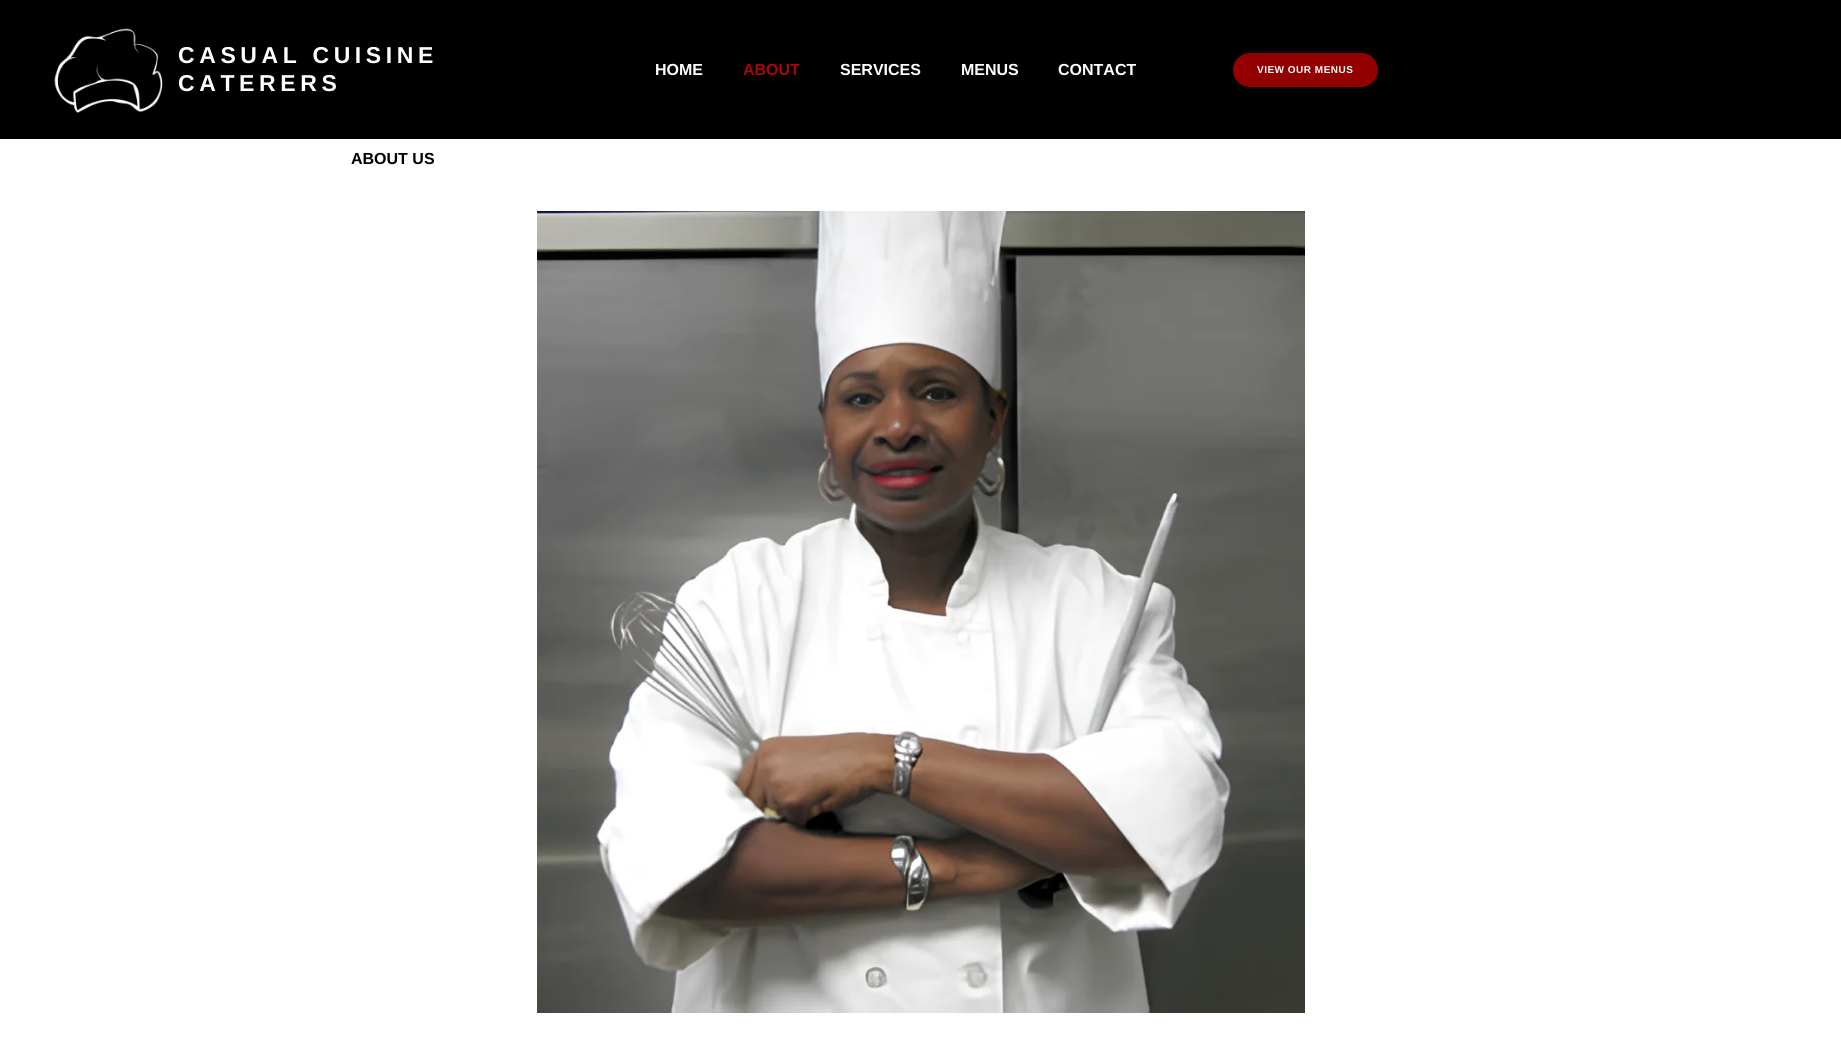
#include <cairo.h>
#include <math.h>
#include <stddef.h>


static void rgb(cairo_t *cr, int r, int g, int b)
{
	cairo_set_source_rgb(cr, r / 255.0, g / 255.0, b / 255.0);
}

static void face(cairo_t *cr, const char *family, double size, int italic, int bold)
{
	cairo_select_font_face(cr, family, italic ? CAIRO_FONT_SLANT_ITALIC : CAIRO_FONT_SLANT_NORMAL,
		bold ? CAIRO_FONT_WEIGHT_BOLD : CAIRO_FONT_WEIGHT_NORMAL);
	cairo_set_font_size(cr, size);
}

static void label(cairo_t *cr, double x, double y, const char *s)
{
	cairo_move_to(cr, x, y);
	cairo_show_text(cr, s);
}

static void tracked(cairo_t *cr, double x, double y, const char *s, double letter, double word)
{
	cairo_move_to(cr, x, y);
	while (*s) {
		char ch[5] = {0};
		int n = 0;
		do ch[n++] = *s++; while ((*s & 0xC0) == 0x80);
		cairo_show_text(cr, ch);
		cairo_rel_move_to(cr, letter + word * (*ch == ' '), 0);
	}
}

static void rect(cairo_t *cr, double x, double y, double w, double h)
{
	cairo_rectangle(cr, x, y, w, h);
	cairo_fill(cr);
}

static void rrect(cairo_t *cr, double x, double y, double w, double h, double r)
{
	cairo_new_sub_path(cr);
	cairo_arc(cr, x + w - r, y + h - r, r, 0, M_PI / 2);
	cairo_arc(cr, x + r, y + h - r, r, M_PI / 2, M_PI);
	cairo_arc(cr, x + r, y + r, r, M_PI, 1.5 * M_PI);
	cairo_arc(cr, x + w - r, y + r, r, 1.5 * M_PI, 2 * M_PI);
	cairo_close_path(cr);
}

static void image(cairo_t *cr, const char *path, double x, double y, double w, double h)
{
	cairo_surface_t *image = cairo_image_surface_create_from_png(path);
	cairo_save(cr);
	cairo_set_source_surface(cr, image, x, y);
	cairo_rectangle(cr, x, y, w, h);
	cairo_fill(cr);
	cairo_restore(cr);
	cairo_surface_destroy(image);
}

static void draw(cairo_t *cr) {
	rgb(cr, 255, 255, 255);
	cairo_paint(cr);
	rgb(cr, 0, 0, 0);
	rect(cr, 0, 0, 1841, 139);
	image(cr, "image0.png", 54, 28, 109, 85);
	face(cr, "Liberation Sans", 23, 0, 1);
	rgb(cr, 255, 255, 255);
	tracked(cr, 178, 63, "CASUAL CUISINE", 4.6, 0);
	tracked(cr, 178, 91, "CATERERS", 4.6, 0);
	face(cr, "Liberation Sans", 16, 0, 1);
	label(cr, 655, 75, "HOME");
	rgb(cr, 168, 7, 7);
	label(cr, 743, 75, "ABOUT");
	rgb(cr, 255, 255, 255);
	label(cr, 840, 75, "SERVICES");
	label(cr, 961, 75, "MENUS");
	label(cr, 1058, 75, "CONTACT");
	rgb(cr, 146, 0, 0);
	rrect(cr, 1233, 53, 145, 34, 17);
	cairo_fill(cr);
	face(cr, "Liberation Sans", 10, 0, 1);
	rgb(cr, 255, 255, 255);
	tracked(cr, 1257, 73, "VIEW OUR MENUS", 0.5, 0);
	face(cr, "Liberation Sans", 16, 0, 1);
	rgb(cr, 0, 0, 0);
	label(cr, 351, 164, "ABOUT US");
	image(cr, "image1.png", 537, 211, 768, 802);
}

int main(void) {
	cairo_surface_t *surface = cairo_image_surface_create(CAIRO_FORMAT_RGB24, 1841, 1060);
	cairo_t *cr = cairo_create(surface);
	cairo_font_options_t *options = cairo_font_options_create();
	cairo_font_options_set_hint_metrics(options, CAIRO_HINT_METRICS_OFF);
	cairo_font_options_set_hint_style(options, CAIRO_HINT_STYLE_NONE);
	cairo_set_font_options(cr, options);
	cairo_set_miter_limit(cr, 4);
	draw(cr);
	cairo_surface_write_to_png(surface, "render.png");
	cairo_font_options_destroy(options);
	cairo_destroy(cr);
	cairo_surface_destroy(surface);
	return 0;
}
